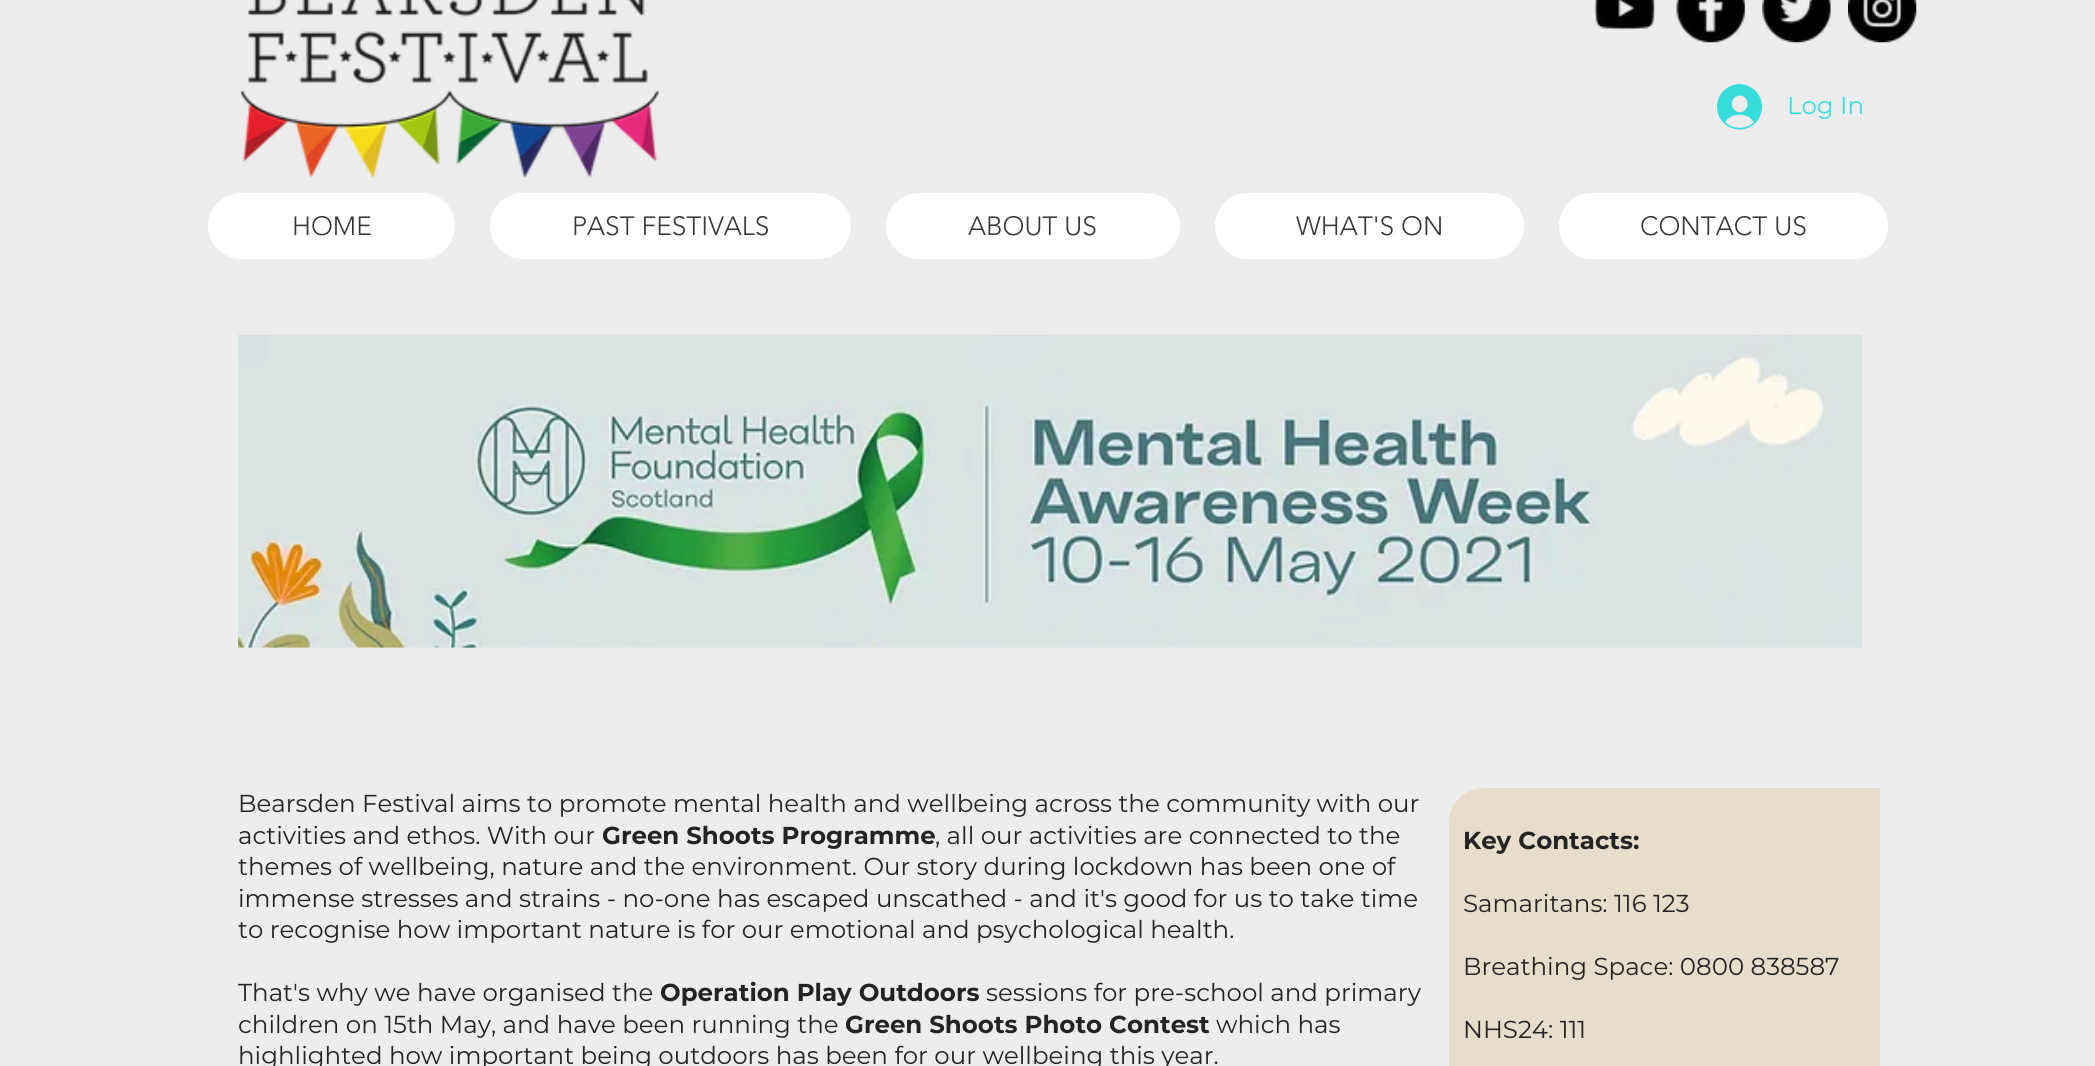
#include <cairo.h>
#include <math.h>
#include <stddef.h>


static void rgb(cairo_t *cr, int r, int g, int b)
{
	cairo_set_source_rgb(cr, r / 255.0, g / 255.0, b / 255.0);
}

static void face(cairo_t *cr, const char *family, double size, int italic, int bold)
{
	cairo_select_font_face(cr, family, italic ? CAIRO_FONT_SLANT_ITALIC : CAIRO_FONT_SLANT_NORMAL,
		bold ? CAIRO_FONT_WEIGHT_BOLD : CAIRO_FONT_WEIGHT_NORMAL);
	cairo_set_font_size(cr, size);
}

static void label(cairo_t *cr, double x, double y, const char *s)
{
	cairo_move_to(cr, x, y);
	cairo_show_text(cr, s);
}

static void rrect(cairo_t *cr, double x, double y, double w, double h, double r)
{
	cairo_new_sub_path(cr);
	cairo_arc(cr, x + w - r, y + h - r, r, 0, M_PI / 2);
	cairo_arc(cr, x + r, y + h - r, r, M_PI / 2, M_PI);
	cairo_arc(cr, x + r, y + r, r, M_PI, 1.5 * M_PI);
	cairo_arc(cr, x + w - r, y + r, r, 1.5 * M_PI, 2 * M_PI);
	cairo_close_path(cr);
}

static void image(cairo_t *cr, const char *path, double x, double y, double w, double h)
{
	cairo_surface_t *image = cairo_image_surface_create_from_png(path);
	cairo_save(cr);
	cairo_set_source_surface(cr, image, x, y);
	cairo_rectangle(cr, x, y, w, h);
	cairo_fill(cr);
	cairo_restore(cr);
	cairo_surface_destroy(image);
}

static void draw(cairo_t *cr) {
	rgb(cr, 237, 237, 237);
	cairo_paint(cr);
	image(cr, "image0.png", 239, 0, 421, 179);
	image(cr, "image1.png", 1594, 0, 62, 30);
	image(cr, "image2.png", 1676, 0, 69, 43);
	image(cr, "image3.png", 1762, 0, 69, 43);
	image(cr, "image4.png", 1848, 0, 69, 43);
	image(cr, "image5.png", 1717, 84, 45, 46);
	face(cr, "Montserrat", 24.5, 0, 0);
	rgb(cr, 55, 221, 221);
	label(cr, 1787, 114, "Log In");
	rgb(cr, 255, 255, 255);
	rrect(cr, 208, 193, 247, 66, 33);
	cairo_fill(cr);
	face(cr, "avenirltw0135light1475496 Light", 26.25, 0, 0);
	rgb(cr, 56, 56, 56);
	label(cr, 292, 235, "HOME");
	rgb(cr, 255, 255, 255);
	rrect(cr, 490, 193, 361, 66, 33);
	cairo_fill(cr);
	rgb(cr, 56, 56, 56);
	label(cr, 572, 235, "PAST FESTIVALS");
	rgb(cr, 255, 255, 255);
	rrect(cr, 886, 193, 294, 66, 33);
	cairo_fill(cr);
	rgb(cr, 56, 56, 56);
	label(cr, 968, 235, "ABOUT US");
	rgb(cr, 255, 255, 255);
	rrect(cr, 1215, 193, 309, 66, 33);
	cairo_fill(cr);
	rgb(cr, 56, 56, 56);
	label(cr, 1296, 235, "WHAT'S ON");
	rgb(cr, 255, 255, 255);
	rrect(cr, 1559, 193, 329, 66, 33);
	cairo_fill(cr);
	rgb(cr, 56, 56, 56);
	label(cr, 1640, 235, "CONTACT US");
	image(cr, "image6.png", 238, 334, 1624, 314);
	face(cr, "Montserrat", 24.5, 0, 0);
	rgb(cr, 36, 35, 35);
	label(cr, 238, 812, "Bearsden Festival aims to promote mental health and wellbeing across the community with our");
	label(cr, 238, 844, "activities and ethos. With our");
	face(cr, "Montserrat", 24.5, 0, 1);
	label(cr, 602, 844, "Green Shoots Programme");
	face(cr, "Montserrat", 24.5, 0, 0);
	label(cr, 935, 844, ", all our activities are connected to the");
	label(cr, 238, 875, "themes of wellbeing, nature and the environment. Our story during lockdown has been one of");
	label(cr, 238, 907, "immense stresses and strains - no-one has escaped unscathed - and it's good for us to take time");
	label(cr, 238, 938, "to recognise how important nature is for our emotional and psychological health.");
	label(cr, 238, 1001, "That's why we have organised the");
	face(cr, "Montserrat", 24.5, 0, 1);
	label(cr, 660, 1001, "Operation Play Outdoors");
	face(cr, "Montserrat", 24.5, 0, 0);
	label(cr, 986, 1001, "sessions for pre-school and primary");
	label(cr, 238, 1033, "children on 15th May, and have been running the");
	face(cr, "Montserrat", 24.5, 0, 1);
	label(cr, 845, 1033, "Green Shoots Photo Contest");
	face(cr, "Montserrat", 24.5, 0, 0);
	label(cr, 1216, 1033, "which has");
	label(cr, 238, 1064, "highlighted how important being outdoors has been for our wellbeing this year.");
	rgb(cr, 230, 222, 202);
	cairo_new_path(cr);
	cairo_move_to(cr, 1484, 788);
	cairo_line_to(cr, 1880, 788);
	cairo_line_to(cr, 1880, 1066);
	cairo_curve_to(cr, 1880, 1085.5, 1864.5, 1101, 1845, 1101);
	cairo_line_to(cr, 1449, 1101);
	cairo_line_to(cr, 1449, 823);
	cairo_curve_to(cr, 1449, 803.5, 1464.5, 788, 1484, 788);
	cairo_close_path(cr);
	cairo_fill(cr);
	face(cr, "Montserrat", 24.5, 0, 1);
	rgb(cr, 36, 35, 35);
	label(cr, 1463, 849, "Key Contacts:");
	face(cr, "Montserrat", 24.5, 0, 0);
	label(cr, 1463, 912, "Samaritans: 116 123");
	label(cr, 1463, 975, "Breathing Space: 0800 838587");
	label(cr, 1463, 1038, "NHS24: 111");
}

int main(void) {
	cairo_surface_t *surface = cairo_image_surface_create(CAIRO_FORMAT_RGB24, 2095, 1066);
	cairo_t *cr = cairo_create(surface);
	cairo_font_options_t *options = cairo_font_options_create();
	cairo_font_options_set_hint_metrics(options, CAIRO_HINT_METRICS_OFF);
	cairo_font_options_set_hint_style(options, CAIRO_HINT_STYLE_NONE);
	cairo_set_font_options(cr, options);
	cairo_set_miter_limit(cr, 4);
	draw(cr);
	cairo_surface_write_to_png(surface, "render.png");
	cairo_font_options_destroy(options);
	cairo_destroy(cr);
	cairo_surface_destroy(surface);
	return 0;
}
